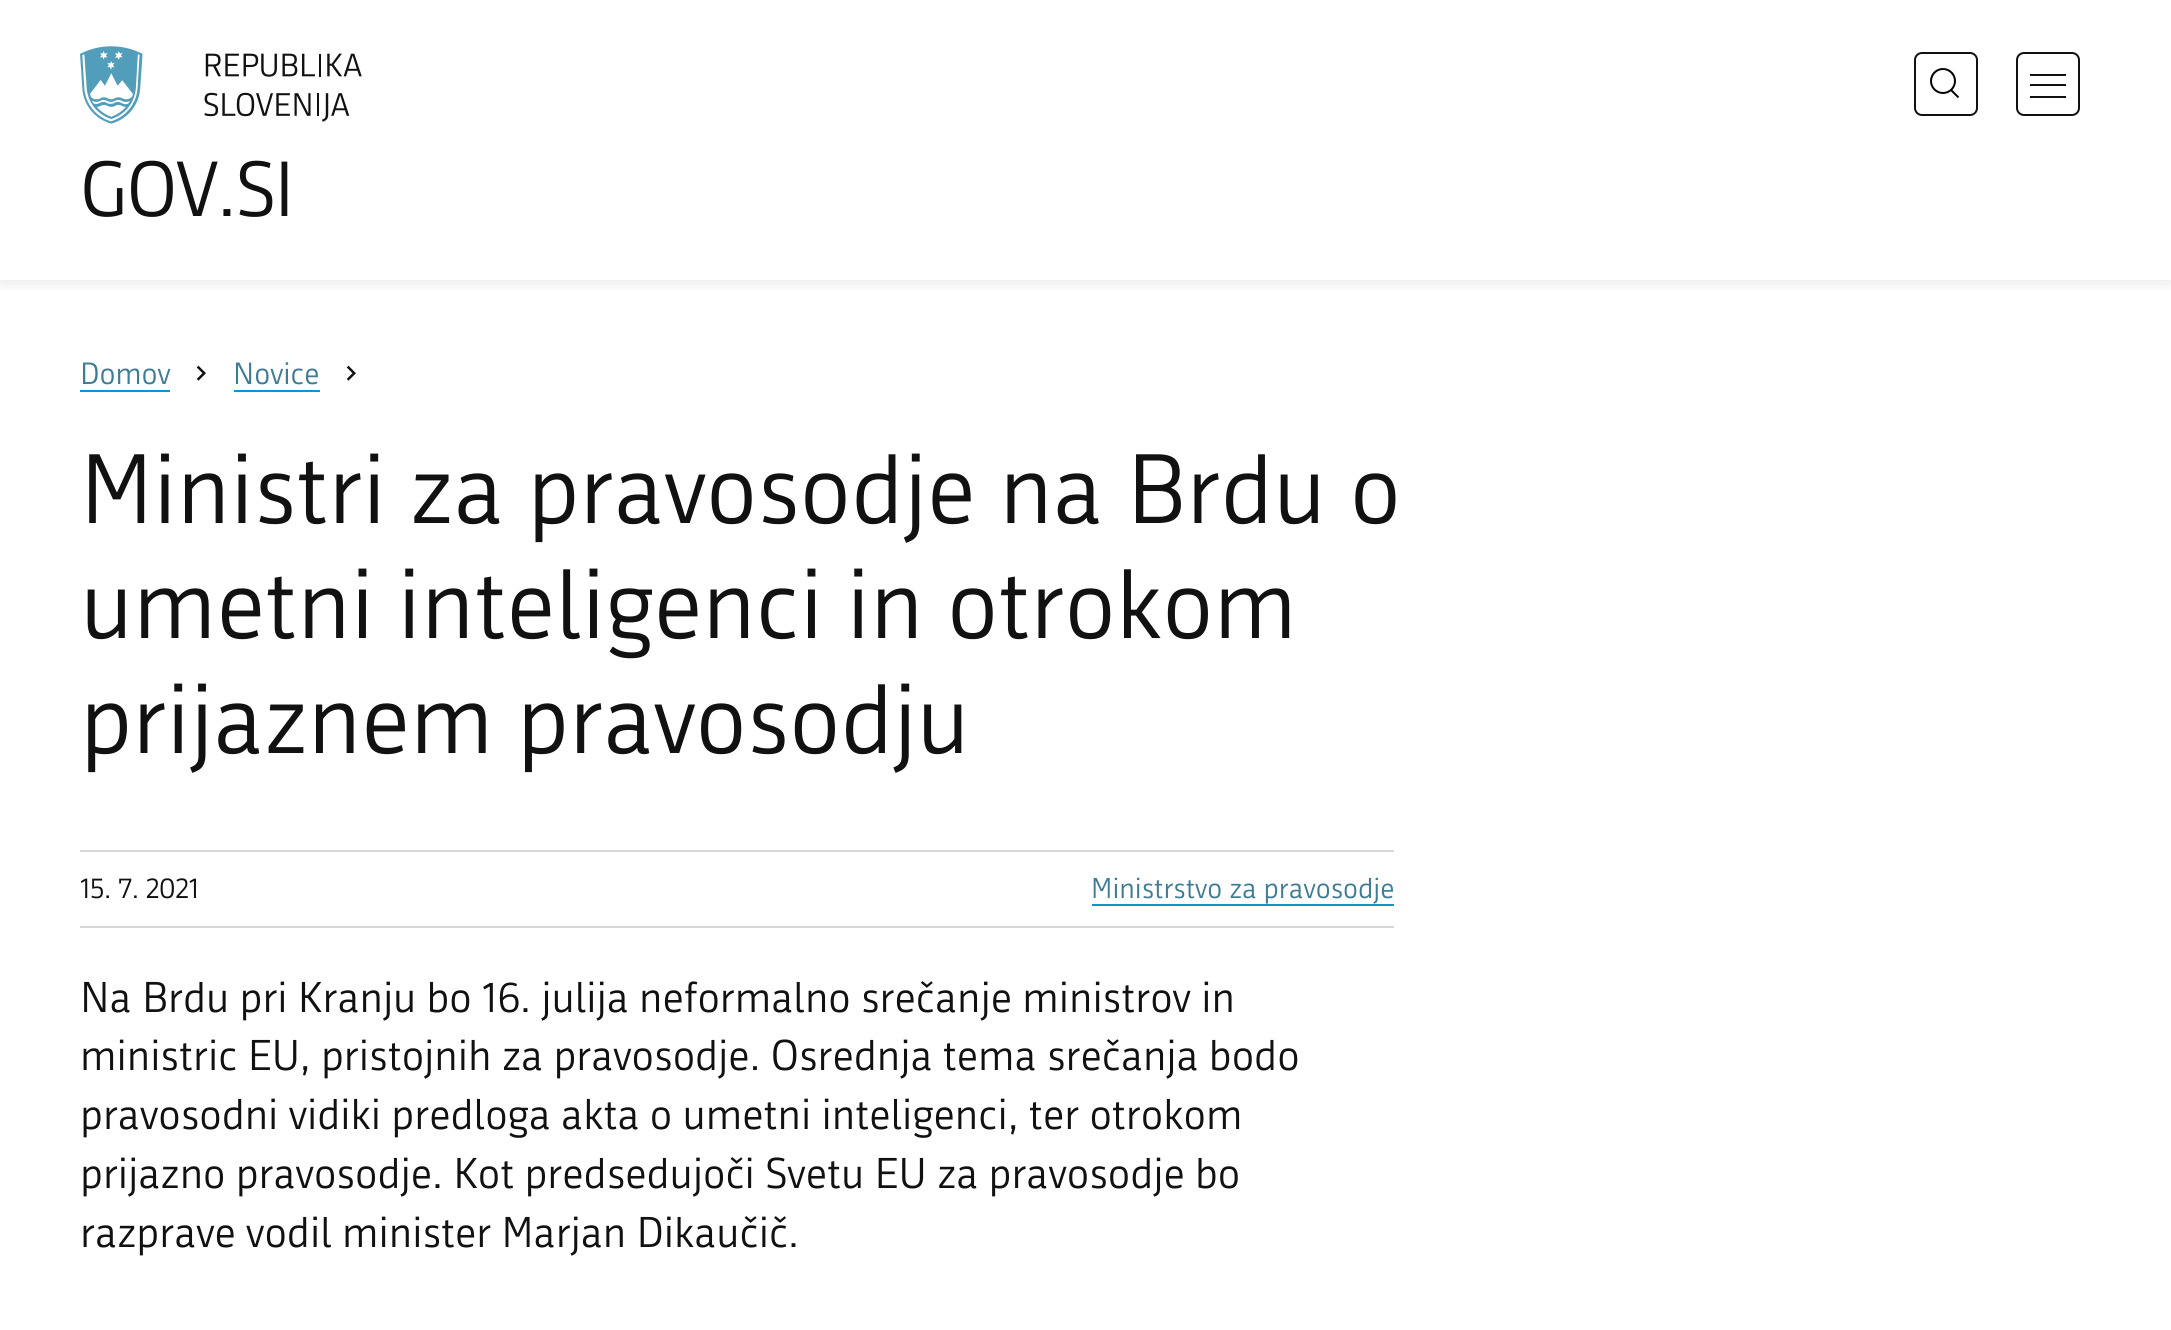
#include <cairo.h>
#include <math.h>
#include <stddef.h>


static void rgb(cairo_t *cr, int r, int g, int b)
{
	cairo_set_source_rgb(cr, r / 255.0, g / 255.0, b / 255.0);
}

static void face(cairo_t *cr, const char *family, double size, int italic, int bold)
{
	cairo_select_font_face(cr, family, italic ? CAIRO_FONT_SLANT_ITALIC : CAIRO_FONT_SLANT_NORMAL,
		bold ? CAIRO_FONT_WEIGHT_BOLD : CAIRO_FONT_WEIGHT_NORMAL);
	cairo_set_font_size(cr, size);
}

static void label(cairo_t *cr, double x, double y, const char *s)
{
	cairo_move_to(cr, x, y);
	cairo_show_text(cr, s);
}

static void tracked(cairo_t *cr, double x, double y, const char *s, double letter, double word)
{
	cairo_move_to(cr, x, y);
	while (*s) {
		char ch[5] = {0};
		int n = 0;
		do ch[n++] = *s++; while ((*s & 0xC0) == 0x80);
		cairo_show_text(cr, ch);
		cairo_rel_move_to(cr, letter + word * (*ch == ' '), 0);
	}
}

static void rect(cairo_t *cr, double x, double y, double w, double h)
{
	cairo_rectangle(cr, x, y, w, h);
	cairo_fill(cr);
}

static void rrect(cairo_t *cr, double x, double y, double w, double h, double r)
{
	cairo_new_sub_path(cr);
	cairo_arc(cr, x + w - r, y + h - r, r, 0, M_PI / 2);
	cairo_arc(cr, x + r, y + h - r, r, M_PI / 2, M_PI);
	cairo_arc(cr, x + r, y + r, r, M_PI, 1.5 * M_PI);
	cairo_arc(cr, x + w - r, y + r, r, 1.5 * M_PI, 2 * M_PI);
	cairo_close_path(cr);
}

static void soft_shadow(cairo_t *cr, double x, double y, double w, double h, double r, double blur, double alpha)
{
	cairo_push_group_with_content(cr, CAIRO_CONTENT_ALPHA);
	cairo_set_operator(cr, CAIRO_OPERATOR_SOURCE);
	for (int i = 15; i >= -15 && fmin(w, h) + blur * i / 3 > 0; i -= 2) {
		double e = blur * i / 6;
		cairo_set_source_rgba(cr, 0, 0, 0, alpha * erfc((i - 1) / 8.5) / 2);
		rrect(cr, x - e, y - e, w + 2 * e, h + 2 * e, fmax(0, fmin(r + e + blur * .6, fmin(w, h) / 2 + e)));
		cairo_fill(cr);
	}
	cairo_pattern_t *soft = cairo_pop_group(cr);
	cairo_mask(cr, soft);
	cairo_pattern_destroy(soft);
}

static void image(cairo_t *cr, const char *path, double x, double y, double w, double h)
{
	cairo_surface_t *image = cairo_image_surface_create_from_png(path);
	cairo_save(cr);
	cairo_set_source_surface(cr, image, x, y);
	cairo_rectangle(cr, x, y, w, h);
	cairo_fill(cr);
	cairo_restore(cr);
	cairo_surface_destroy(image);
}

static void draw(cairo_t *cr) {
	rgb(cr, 255, 255, 255);
	cairo_paint(cr);
	cairo_save(cr);
	cairo_rectangle(cr, 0, 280, 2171, 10);
	cairo_clip(cr);
	rgb(cr, 0, 0, 0);
	soft_shadow(cr, 0, 0, 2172, 280, 0, 10, 0.12);
	cairo_restore(cr);
	rrect(cr, 1915, 53, 62, 62, 7);
	rgb(cr, 17, 17, 17);
	cairo_stroke(cr);
	cairo_arc(cr, 1943, 81, 12, 0, 2 * M_PI);
	rgb(cr, 0, 0, 0);
	cairo_stroke(cr);
	cairo_new_path(cr);
	cairo_move_to(cr, 1950.5, 89.5);
	cairo_line_to(cr, 1958.5, 97.5);
	cairo_stroke(cr);
	rrect(cr, 2017, 53, 62, 62, 7);
	rgb(cr, 17, 17, 17);
	cairo_stroke(cr);
	rect(cr, 2030, 96, 36, 2);
	rect(cr, 2030, 74, 36, 2);
	rect(cr, 2030, 84, 36, 2);
	image(cr, "image0.png", 80, 46, 282, 78);
	face(cr, "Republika", 76, 0, 0);
	tracked(cr, 80, 216, "GOV.SI", -1.5, 0);
	face(cr, "Republika", 30, 0, 0);
	rgb(cr, 62, 124, 148);
	label(cr, 80, 384, "Domov");
	rgb(cr, 13, 150, 202);
	rect(cr, 80, 390, 90, 2);
	image(cr, "image1.png", 196, 365, 10, 16);
	rgb(cr, 62, 124, 148);
	label(cr, 233, 384, "Novice");
	rgb(cr, 13, 150, 202);
	rect(cr, 234, 390, 86, 2);
	image(cr, "image1.png", 346, 365, 10, 16);
	face(cr, "Republika", 96, 0, 0);
	rgb(cr, 17, 17, 17);
	label(cr, 80, 523, "Ministri za pravosodje na Brdu o");
	label(cr, 80, 638, "umetni inteligenci in otrokom");
	label(cr, 80, 753, "prijaznem pravosodju");
	rgb(cr, 215, 215, 215);
	rect(cr, 80, 850, 1314, 2);
	rect(cr, 80, 926, 1314, 2);
	face(cr, "Republika", 28, 0, 0);
	rgb(cr, 17, 17, 17);
	label(cr, 80, 898, "15. 7. 2021");
	rgb(cr, 62, 124, 148);
	label(cr, 1091, 898, "Ministrstvo za pravosodje");
	rgb(cr, 13, 150, 202);
	rect(cr, 1092, 904, 302, 2);
	face(cr, "Republika", 42, 0, 0);
	rgb(cr, 17, 17, 17);
	label(cr, 80, 1012, "Na Brdu pri Kranju bo 16. julija neformalno srečanje ministrov in");
	label(cr, 80, 1070, "ministric EU, pristojnih za pravosodje. Osrednja tema srečanja bodo");
	label(cr, 80, 1129, "pravosodni vidiki predloga akta o umetni inteligenci, ter otrokom");
	label(cr, 80, 1188, "prijazno pravosodje. Kot predsedujoči Svetu EU za pravosodje bo");
	label(cr, 80, 1247, "razprave vodil minister Marjan Dikaučič.");
}

int main(void) {
	cairo_surface_t *surface = cairo_image_surface_create(CAIRO_FORMAT_RGB24, 2171, 1330);
	cairo_t *cr = cairo_create(surface);
	cairo_font_options_t *options = cairo_font_options_create();
	cairo_font_options_set_hint_metrics(options, CAIRO_HINT_METRICS_OFF);
	cairo_font_options_set_hint_style(options, CAIRO_HINT_STYLE_NONE);
	cairo_set_font_options(cr, options);
	cairo_set_miter_limit(cr, 4);
	draw(cr);
	cairo_surface_write_to_png(surface, "render.png");
	cairo_font_options_destroy(options);
	cairo_destroy(cr);
	cairo_surface_destroy(surface);
	return 0;
}
